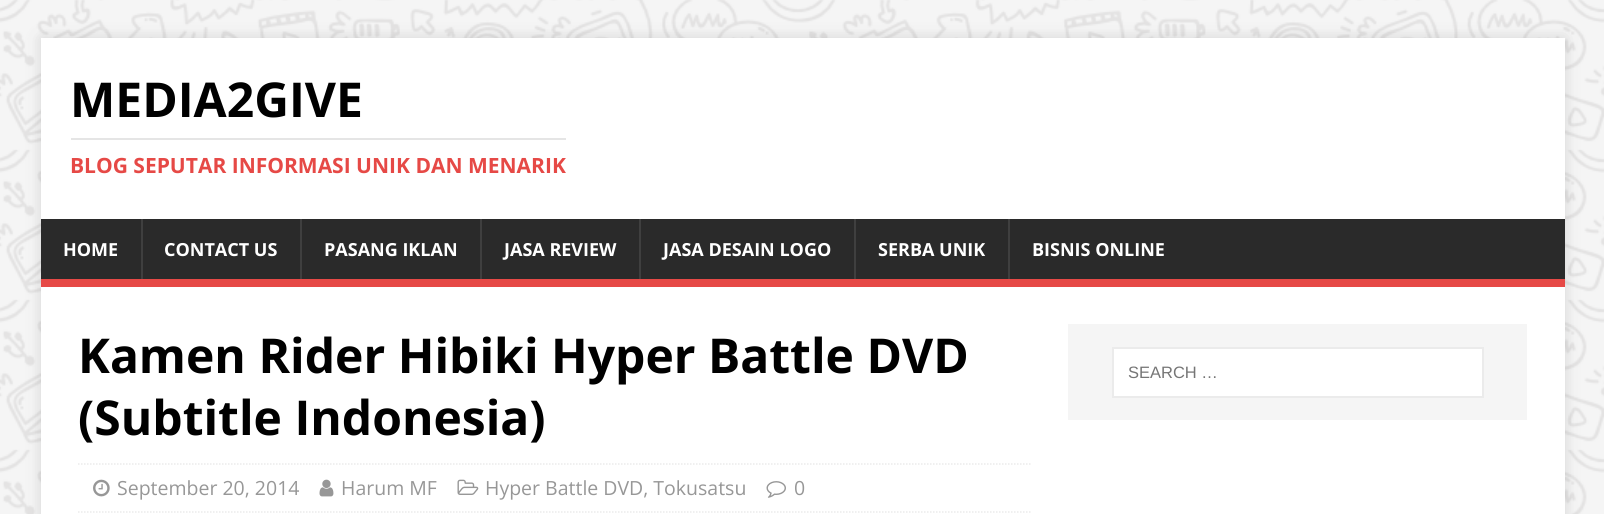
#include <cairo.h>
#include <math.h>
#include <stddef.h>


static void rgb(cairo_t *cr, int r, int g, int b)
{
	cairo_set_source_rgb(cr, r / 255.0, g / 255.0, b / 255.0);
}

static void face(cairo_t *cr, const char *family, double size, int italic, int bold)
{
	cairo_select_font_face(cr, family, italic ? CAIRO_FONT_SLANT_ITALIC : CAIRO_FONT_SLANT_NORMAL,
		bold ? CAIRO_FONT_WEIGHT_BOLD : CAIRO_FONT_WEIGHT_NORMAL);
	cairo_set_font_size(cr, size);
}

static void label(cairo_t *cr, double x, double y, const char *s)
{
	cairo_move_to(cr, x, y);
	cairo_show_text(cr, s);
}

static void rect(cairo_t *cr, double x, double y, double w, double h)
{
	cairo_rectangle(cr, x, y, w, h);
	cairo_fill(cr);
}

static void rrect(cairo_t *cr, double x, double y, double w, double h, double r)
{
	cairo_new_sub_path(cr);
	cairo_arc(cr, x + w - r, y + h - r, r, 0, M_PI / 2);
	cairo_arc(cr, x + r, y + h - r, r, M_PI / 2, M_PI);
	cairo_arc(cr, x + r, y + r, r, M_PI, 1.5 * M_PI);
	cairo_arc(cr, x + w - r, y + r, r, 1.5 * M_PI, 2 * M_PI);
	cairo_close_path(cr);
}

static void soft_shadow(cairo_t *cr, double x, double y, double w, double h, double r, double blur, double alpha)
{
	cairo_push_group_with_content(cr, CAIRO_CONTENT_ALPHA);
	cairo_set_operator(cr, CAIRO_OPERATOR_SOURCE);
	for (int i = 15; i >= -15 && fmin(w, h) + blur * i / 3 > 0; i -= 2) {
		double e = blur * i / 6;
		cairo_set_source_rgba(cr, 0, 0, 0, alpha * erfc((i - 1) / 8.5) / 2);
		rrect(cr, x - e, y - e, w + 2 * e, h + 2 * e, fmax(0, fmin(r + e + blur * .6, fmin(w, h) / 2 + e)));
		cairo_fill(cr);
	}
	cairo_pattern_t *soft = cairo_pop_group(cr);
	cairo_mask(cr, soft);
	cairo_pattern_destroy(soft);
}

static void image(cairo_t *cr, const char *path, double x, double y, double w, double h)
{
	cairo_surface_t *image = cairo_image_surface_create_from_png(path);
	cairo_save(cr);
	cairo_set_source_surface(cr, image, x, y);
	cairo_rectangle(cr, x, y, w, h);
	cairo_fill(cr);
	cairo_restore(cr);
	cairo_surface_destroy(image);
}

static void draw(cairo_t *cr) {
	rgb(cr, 255, 255, 255);
	cairo_paint(cr);
	image(cr, "image0.png", 0, 0, 1604, 514);
	rgb(cr, 50, 50, 50);
	soft_shadow(cr, 41, 38, 1524, 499, 0, 7.5, 0.17);
	rgb(cr, 255, 255, 255);
	rect(cr, 41, 38, 1524, 181);
	face(cr, "Open Sans", 48, 0, 1);
	rgb(cr, 0, 0, 0);
	label(cr, 70, 117, "MEDIA2GIVE");
	rgb(cr, 229, 229, 229);
	rect(cr, 71, 138, 495, 2);
	face(cr, "Open Sans", 21, 0, 1);
	rgb(cr, 230, 73, 70);
	label(cr, 70, 173, "BLOG SEPUTAR INFORMASI UNIK DAN MENARIK");
	rgb(cr, 42, 42, 42);
	rect(cr, 41, 219, 1524, 60);
	rgb(cr, 230, 73, 70);
	rect(cr, 41, 279, 1524, 8);
	face(cr, "Open Sans", 18, 0, 1);
	rgb(cr, 255, 255, 255);
	label(cr, 63, 256, "HOME");
	rgb(cr, 63, 63, 63);
	rect(cr, 141, 219, 2, 60);
	rgb(cr, 255, 255, 255);
	label(cr, 164, 256, "CONTACT US");
	rgb(cr, 63, 63, 63);
	rect(cr, 300, 219, 2, 60);
	rgb(cr, 255, 255, 255);
	label(cr, 324, 256, "PASANG IKLAN");
	rgb(cr, 63, 63, 63);
	rect(cr, 480, 219, 2, 60);
	rgb(cr, 255, 255, 255);
	label(cr, 504, 256, "JASA REVIEW");
	rgb(cr, 63, 63, 63);
	rect(cr, 639, 219, 2, 60);
	rgb(cr, 255, 255, 255);
	label(cr, 663, 256, "JASA DESAIN LOGO");
	rgb(cr, 63, 63, 63);
	rect(cr, 854, 219, 2, 60);
	rgb(cr, 255, 255, 255);
	label(cr, 878, 256, "SERBA UNIK");
	rgb(cr, 63, 63, 63);
	rect(cr, 1008, 219, 2, 60);
	rgb(cr, 255, 255, 255);
	label(cr, 1032, 256, "BISNIS ONLINE");
	rect(cr, 41, 287, 1524, 227);
	face(cr, "Open Sans", 48, 0, 1);
	rgb(cr, 0, 0, 0);
	label(cr, 78, 373, "Kamen Rider Hibiki Hyper Battle DVD");
	label(cr, 78, 435, "(Subtitle Indonesia)");
	cairo_new_path(cr);
	cairo_move_to(cr, 78, 464);
	cairo_line_to(cr, 1032, 464);
	rgb(cr, 235, 235, 235);
	cairo_set_line_width(cr, 1.5);
	cairo_set_dash(cr, (double[]){1.5, 1.5}, 2, 0);
	cairo_stroke(cr);
	cairo_new_path(cr);
	cairo_move_to(cr, 78, 512);
	cairo_line_to(cr, 1032, 512);
	cairo_stroke(cr);
	image(cr, "image1.png", 93, 479, 17, 18);
	face(cr, "Open Sans", 19.5, 0, 0);
	rgb(cr, 151, 151, 151);
	label(cr, 117, 495, "September 20, 2014");
	image(cr, "image2.png", 319, 479, 15, 18);
	label(cr, 341, 495, "Harum MF");
	image(cr, "image3.png", 457, 479, 22, 16);
	label(cr, 485, 495, "Hyper Battle DVD, Tokusatsu");
	image(cr, "image4.png", 766, 481, 20, 17);
	label(cr, 794, 495, "0");
	rgb(cr, 245, 245, 245);
	rect(cr, 1068, 324, 459, 96);
	rgb(cr, 255, 255, 255);
	cairo_rectangle(cr, 1113, 348, 370, 49);
	cairo_fill_preserve(cr);
	rgb(cr, 235, 235, 235);
	cairo_set_line_width(cr, 2);
	cairo_set_dash(cr, NULL, 0, 0);
	cairo_stroke(cr);
	face(cr, "Liberation Sans", 16.5, 0, 0);
	rgb(cr, 117, 117, 117);
	label(cr, 1128, 378, "SEARCH …");
}

int main(void) {
	cairo_surface_t *surface = cairo_image_surface_create(CAIRO_FORMAT_RGB24, 1604, 514);
	cairo_t *cr = cairo_create(surface);
	cairo_font_options_t *options = cairo_font_options_create();
	cairo_font_options_set_hint_metrics(options, CAIRO_HINT_METRICS_OFF);
	cairo_font_options_set_hint_style(options, CAIRO_HINT_STYLE_NONE);
	cairo_set_font_options(cr, options);
	cairo_set_miter_limit(cr, 4);
	draw(cr);
	cairo_surface_write_to_png(surface, "render.png");
	cairo_font_options_destroy(options);
	cairo_destroy(cr);
	cairo_surface_destroy(surface);
	return 0;
}
